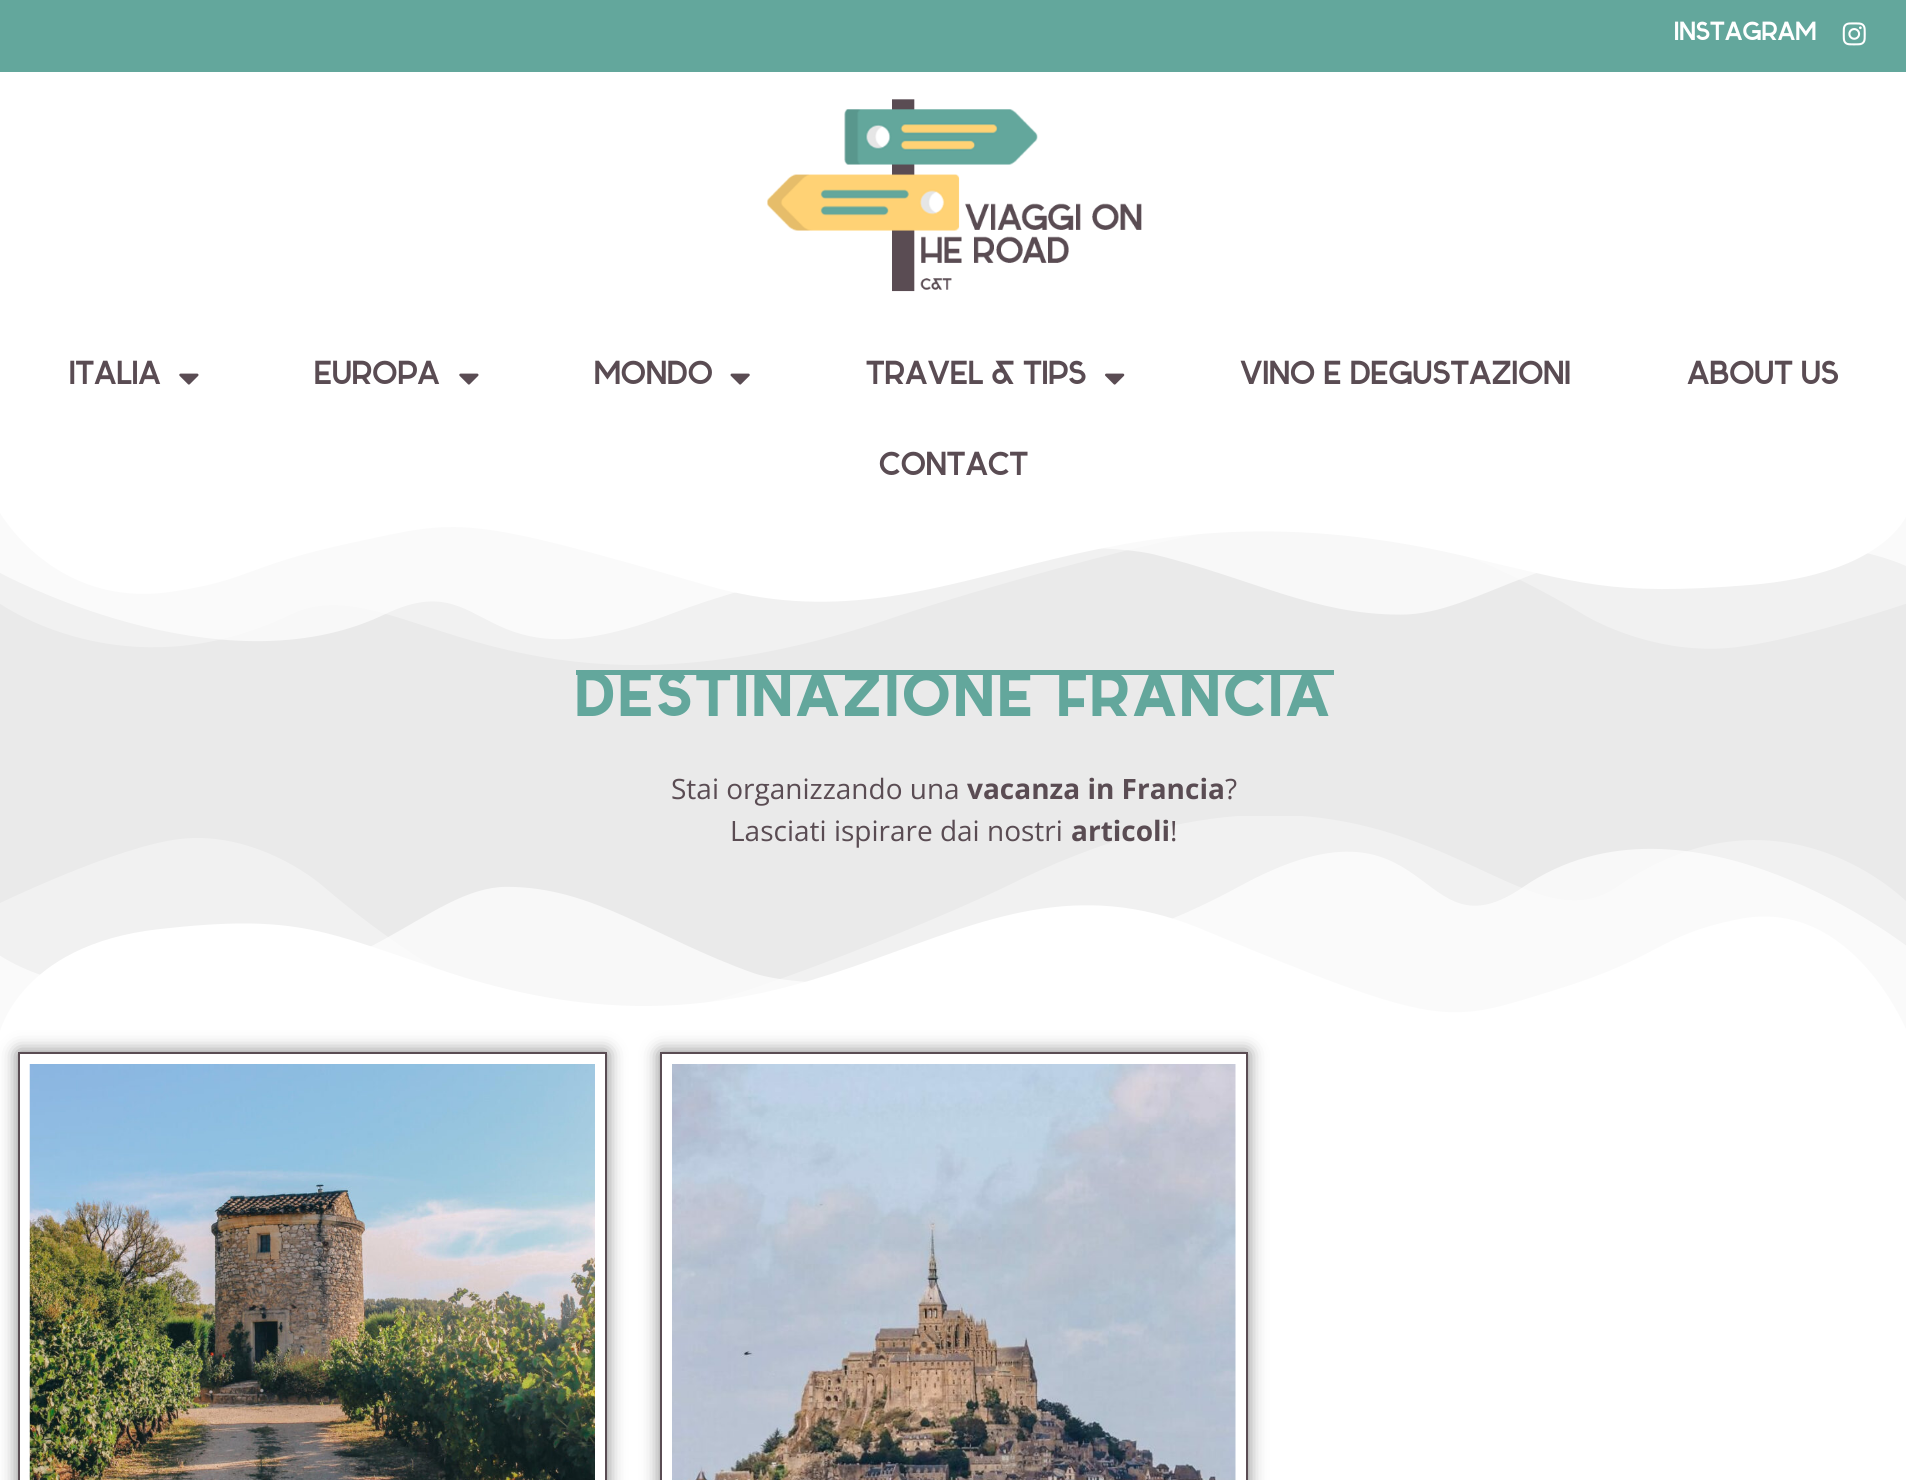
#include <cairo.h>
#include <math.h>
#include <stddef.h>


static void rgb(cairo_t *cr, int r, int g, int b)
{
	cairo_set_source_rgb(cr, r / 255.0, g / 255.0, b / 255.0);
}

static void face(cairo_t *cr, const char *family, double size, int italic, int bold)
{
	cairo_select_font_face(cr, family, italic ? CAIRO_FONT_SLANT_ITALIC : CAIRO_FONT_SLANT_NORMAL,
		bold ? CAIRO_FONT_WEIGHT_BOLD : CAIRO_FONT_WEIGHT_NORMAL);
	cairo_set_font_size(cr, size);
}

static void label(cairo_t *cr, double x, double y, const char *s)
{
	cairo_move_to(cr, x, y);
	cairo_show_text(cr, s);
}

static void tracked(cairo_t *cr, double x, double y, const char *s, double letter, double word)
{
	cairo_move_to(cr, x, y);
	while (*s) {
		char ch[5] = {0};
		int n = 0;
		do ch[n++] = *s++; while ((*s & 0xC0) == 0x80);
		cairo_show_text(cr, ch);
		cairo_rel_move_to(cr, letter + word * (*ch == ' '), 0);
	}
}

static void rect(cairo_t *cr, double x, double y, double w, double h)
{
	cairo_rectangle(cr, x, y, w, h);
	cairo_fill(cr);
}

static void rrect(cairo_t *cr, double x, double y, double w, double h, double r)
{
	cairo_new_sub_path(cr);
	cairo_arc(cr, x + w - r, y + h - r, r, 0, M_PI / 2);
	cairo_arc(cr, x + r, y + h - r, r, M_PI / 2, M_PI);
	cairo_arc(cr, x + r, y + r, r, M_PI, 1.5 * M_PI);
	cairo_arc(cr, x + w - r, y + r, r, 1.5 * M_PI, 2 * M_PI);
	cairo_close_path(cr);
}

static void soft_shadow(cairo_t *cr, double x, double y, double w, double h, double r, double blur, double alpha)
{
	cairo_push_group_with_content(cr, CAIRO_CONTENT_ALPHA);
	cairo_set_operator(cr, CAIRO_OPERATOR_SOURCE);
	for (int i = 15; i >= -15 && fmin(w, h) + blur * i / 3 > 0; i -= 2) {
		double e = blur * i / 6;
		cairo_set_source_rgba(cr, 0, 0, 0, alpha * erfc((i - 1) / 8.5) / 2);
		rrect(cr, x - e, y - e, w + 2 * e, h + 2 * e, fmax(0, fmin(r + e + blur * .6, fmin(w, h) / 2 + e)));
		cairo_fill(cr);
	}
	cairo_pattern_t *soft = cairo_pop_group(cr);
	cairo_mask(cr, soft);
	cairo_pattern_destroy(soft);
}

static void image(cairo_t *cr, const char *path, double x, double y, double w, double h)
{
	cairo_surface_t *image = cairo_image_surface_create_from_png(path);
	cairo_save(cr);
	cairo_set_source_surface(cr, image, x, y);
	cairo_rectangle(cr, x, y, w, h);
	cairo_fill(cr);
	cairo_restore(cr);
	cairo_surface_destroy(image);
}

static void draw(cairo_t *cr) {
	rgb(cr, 255, 255, 255);
	cairo_paint(cr);
	rgb(cr, 99, 167, 156);
	rect(cr, 0, 0, 1906, 72);
	face(cr, "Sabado", 26.25, 0, 0);
	rgb(cr, 255, 255, 255);
	label(cr, 1674, 40, "INSTAGRAM");
	image(cr, "image0.png", 1842, 22, 24, 24);
	image(cr, "image1.png", 767, 99, 375, 193);
	face(cr, "Sabado", 33.25, 0, 0);
	rgb(cr, 90, 76, 83);
	label(cr, 69, 384, "ITALIA");
	image(cr, "image2.png", 179, 373, 20, 12);
	label(cr, 314, 384, "EUROPA");
	image(cr, "image2.png", 459, 373, 20, 12);
	label(cr, 594, 384, "MONDO");
	image(cr, "image3.png", 730, 373, 20, 12);
	label(cr, 866, 384, "TRAVEL & TIPS");
	image(cr, "image4.png", 1105, 373, 20, 12);
	label(cr, 1240, 384, "VINO E DEGUSTAZIONI");
	label(cr, 1687, 384, "ABOUT US");
	label(cr, 879, 475, "CONTACT");
	rgb(cr, 234, 234, 234);
	rect(cr, 0, 513, 1906, 518);
	image(cr, "image5.png", 0, 513, 1906, 152);
	rgb(cr, 99, 167, 156);
	rect(cr, 576, 670, 758, 5);
	face(cr, "Sabado", 61.25, 0, 1);
	tracked(cr, 575, 716, "DESTINAZIONE FRANCIA", 5.25, 0);
	face(cr, "Open Sans", 28, 0, 0);
	rgb(cr, 90, 76, 83);
	label(cr, 671, 799, "Stai organizzando una");
	face(cr, "Open Sans", 28, 0, 1);
	label(cr, 967, 799, "vacanza in Francia");
	face(cr, "Open Sans", 28, 0, 0);
	label(cr, 1225, 799, "?");
	image(cr, "image6.png", 0, 816, 1906, 218);
	label(cr, 730, 841, "Lasciati ispirare dai nostri");
	face(cr, "Open Sans", 28, 0, 1);
	label(cr, 1071, 841, "articoli");
	face(cr, "Open Sans", 28, 0, 0);
	label(cr, 1170, 841, "!");
	cairo_save(cr);
	cairo_set_fill_rule(cr, CAIRO_FILL_RULE_EVEN_ODD);
	cairo_new_path(cr);
	cairo_move_to(cr, 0, 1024);
	cairo_line_to(cr, 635, 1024);
	cairo_line_to(cr, 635, 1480);
	cairo_line_to(cr, 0, 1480);
	cairo_close_path(cr);
	cairo_move_to(cr, 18, 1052);
	cairo_line_to(cr, 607, 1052);
	cairo_line_to(cr, 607, 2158);
	cairo_line_to(cr, 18, 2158);
	cairo_close_path(cr);
	cairo_clip(cr);
	rgb(cr, 0, 0, 0);
	soft_shadow(cr, 18, 1052, 589, 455, 0, 9, 0.5);
	cairo_restore(cr);
	cairo_rectangle(cr, 19, 1053, 587, 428);
	cairo_stroke(cr);
	image(cr, "image7.png", 29, 1064, 566, 416);
	cairo_save(cr);
	cairo_set_fill_rule(cr, CAIRO_FILL_RULE_EVEN_ODD);
	cairo_new_path(cr);
	cairo_move_to(cr, 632, 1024);
	cairo_line_to(cr, 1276, 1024);
	cairo_line_to(cr, 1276, 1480);
	cairo_line_to(cr, 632, 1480);
	cairo_close_path(cr);
	cairo_move_to(cr, 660, 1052);
	cairo_line_to(cr, 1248, 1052);
	cairo_line_to(cr, 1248, 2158);
	cairo_line_to(cr, 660, 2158);
	cairo_close_path(cr);
	cairo_clip(cr);
	rgb(cr, 0, 0, 0);
	soft_shadow(cr, 660, 1052, 588, 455, 0, 9, 0.5);
	cairo_restore(cr);
	cairo_rectangle(cr, 661, 1053, 586, 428);
	cairo_stroke(cr);
	image(cr, "image8.png", 672, 1064, 564, 416);
}

int main(void) {
	cairo_surface_t *surface = cairo_image_surface_create(CAIRO_FORMAT_RGB24, 1906, 1480);
	cairo_t *cr = cairo_create(surface);
	cairo_font_options_t *options = cairo_font_options_create();
	cairo_font_options_set_hint_metrics(options, CAIRO_HINT_METRICS_OFF);
	cairo_font_options_set_hint_style(options, CAIRO_HINT_STYLE_NONE);
	cairo_set_font_options(cr, options);
	cairo_set_miter_limit(cr, 4);
	draw(cr);
	cairo_surface_write_to_png(surface, "render.png");
	cairo_font_options_destroy(options);
	cairo_destroy(cr);
	cairo_surface_destroy(surface);
	return 0;
}
